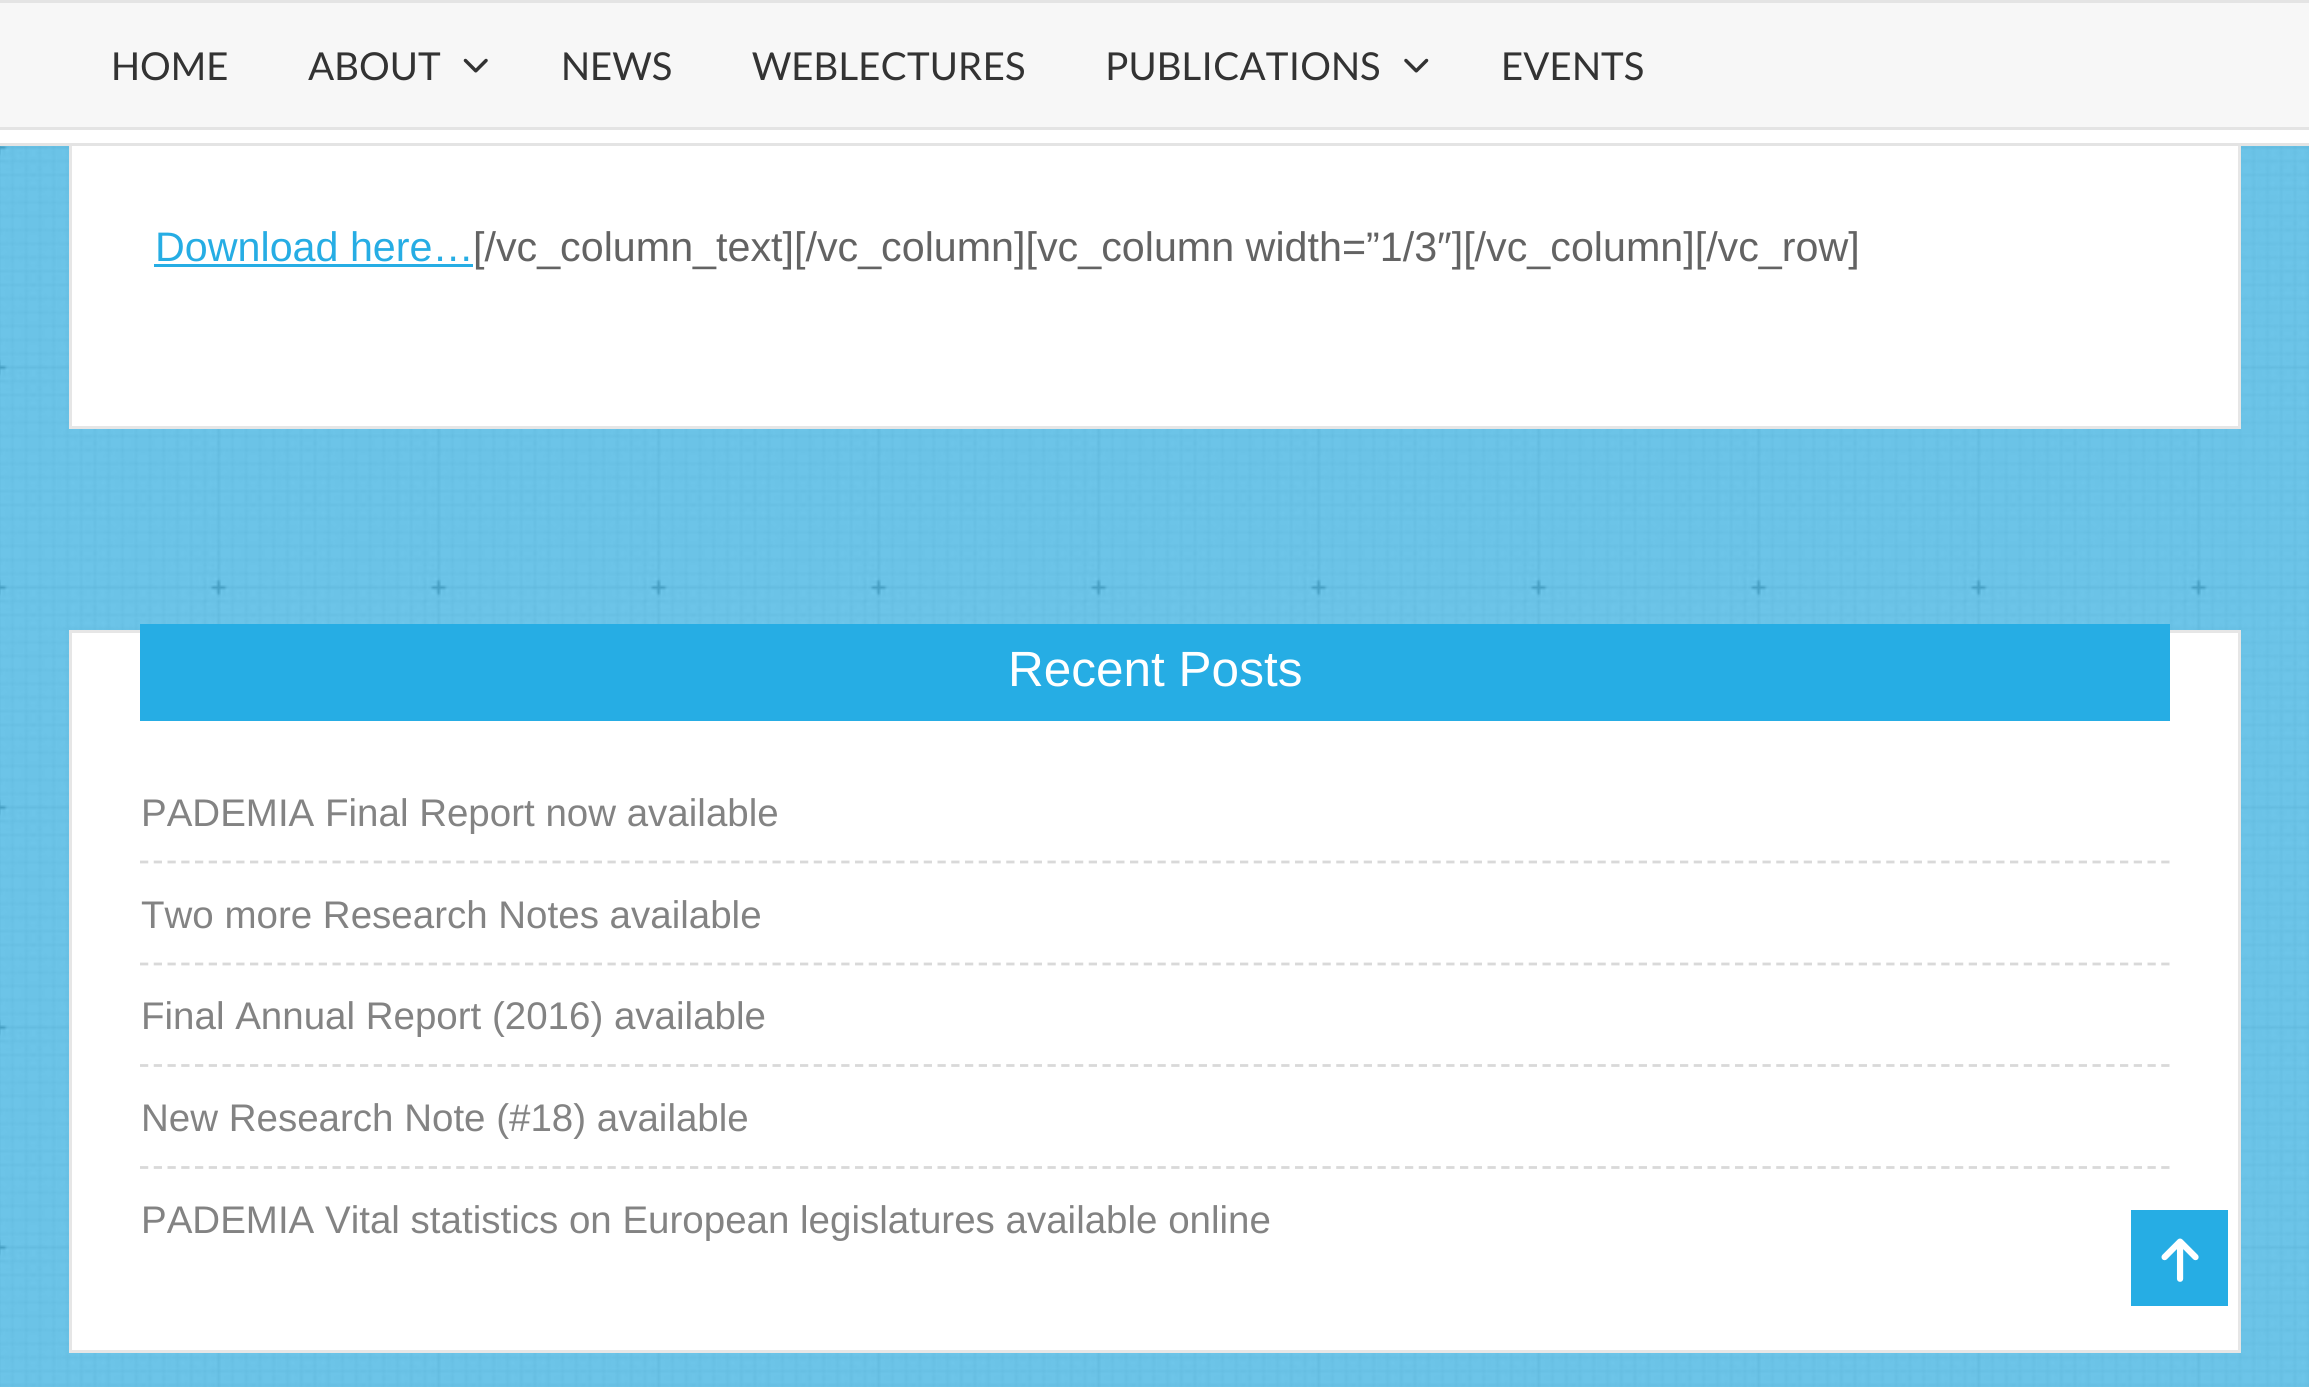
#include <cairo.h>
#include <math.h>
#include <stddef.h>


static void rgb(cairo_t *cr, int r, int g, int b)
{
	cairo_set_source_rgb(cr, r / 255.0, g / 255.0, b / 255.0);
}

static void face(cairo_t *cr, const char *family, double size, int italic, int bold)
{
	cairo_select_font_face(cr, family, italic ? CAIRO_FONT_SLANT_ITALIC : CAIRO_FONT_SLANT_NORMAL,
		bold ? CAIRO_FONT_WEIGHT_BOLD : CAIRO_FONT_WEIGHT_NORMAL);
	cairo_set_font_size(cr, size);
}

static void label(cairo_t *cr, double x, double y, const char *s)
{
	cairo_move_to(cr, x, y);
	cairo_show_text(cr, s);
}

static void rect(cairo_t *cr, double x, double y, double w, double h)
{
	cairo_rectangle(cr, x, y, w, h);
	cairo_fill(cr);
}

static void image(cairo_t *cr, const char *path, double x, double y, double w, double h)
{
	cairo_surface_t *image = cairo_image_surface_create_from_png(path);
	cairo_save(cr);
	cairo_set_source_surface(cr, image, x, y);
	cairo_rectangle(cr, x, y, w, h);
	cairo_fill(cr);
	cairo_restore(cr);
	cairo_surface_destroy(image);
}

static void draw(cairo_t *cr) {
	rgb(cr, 255, 255, 255);
	cairo_paint(cr);
	image(cr, "image0.png", 0, 146, 2309, 1241);
	rgb(cr, 255, 255, 255);
	rect(cr, 72, 146, 2166, 280);
	cairo_rectangle(cr, 70.5, -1.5, 2169, 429);
	rgb(cr, 230, 230, 230);
	cairo_set_line_width(cr, 3);
	cairo_stroke(cr);
	rgb(cr, 228, 228, 228);
	rect(cr, 0, 143, 2309, 3);
	rgb(cr, 247, 247, 247);
	rect(cr, 0, 3, 2309, 124);
	rgb(cr, 255, 255, 255);
	rect(cr, 69, 130, 2172, 13);
	rgb(cr, 228, 228, 228);
	rect(cr, 0, 0, 2309, 3);
	rect(cr, 0, 127, 2309, 3);
	face(cr, "Lato", 38.5, 0, 0);
	rgb(cr, 51, 51, 51);
	label(cr, 111, 80, "HOME");
	label(cr, 308, 80, "ABOUT");
	image(cr, "image1.png", 463, 58, 25, 15);
	label(cr, 561, 80, "NEWS");
	label(cr, 752, 80, "WEBLECTURES");
	label(cr, 1105, 80, "PUBLICATIONS");
	image(cr, "image2.png", 1404, 58, 25, 15);
	label(cr, 1501, 80, "EVENTS");
	face(cr, "Liberation Sans", 41.25, 0, 0);
	rgb(cr, 38, 173, 228);
	label(cr, 155, 261, "Download here…");
	rect(cr, 154, 264, 319, 3);
	rgb(cr, 99, 99, 99);
	label(cr, 473, 261, "[/vc_column_text][/vc_column][vc_column width=”1/3″][/vc_column][/vc_row]");
	rgb(cr, 255, 255, 255);
	cairo_rectangle(cr, 70.5, 631.5, 2169, 720);
	cairo_fill_preserve(cr);
	rgb(cr, 230, 230, 230);
	cairo_stroke(cr);
	rgb(cr, 38, 173, 228);
	rect(cr, 140, 624, 2030, 97);
	face(cr, "Liberation Sans", 49.5, 0, 0);
	rgb(cr, 255, 255, 255);
	label(cr, 1008, 686, "Recent Posts");
	cairo_new_path(cr);
	cairo_move_to(cr, 140, 862);
	cairo_line_to(cr, 2170, 862);
	rgb(cr, 217, 217, 217);
	cairo_set_line_width(cr, 2.8);
	cairo_set_dash(cr, (double[]){8.25, 5.5}, 2, 0);
	cairo_stroke(cr);
	face(cr, "Liberation Sans", 38.5, 0, 0);
	rgb(cr, 131, 131, 131);
	label(cr, 141, 826, "PADEMIA Final Report now available");
	cairo_new_path(cr);
	cairo_move_to(cr, 140, 964);
	cairo_line_to(cr, 2170, 964);
	rgb(cr, 217, 217, 217);
	cairo_stroke(cr);
	rgb(cr, 131, 131, 131);
	label(cr, 141, 928, "Two more Research Notes available");
	cairo_new_path(cr);
	cairo_move_to(cr, 140, 1065.5);
	cairo_line_to(cr, 2170, 1065.5);
	rgb(cr, 217, 217, 217);
	cairo_stroke(cr);
	rgb(cr, 131, 131, 131);
	label(cr, 141, 1029, "Final Annual Report (2016) available");
	cairo_new_path(cr);
	cairo_move_to(cr, 140, 1167.5);
	cairo_line_to(cr, 2170, 1167.5);
	rgb(cr, 217, 217, 217);
	cairo_stroke(cr);
	rgb(cr, 131, 131, 131);
	label(cr, 141, 1131, "New Research Note (#18) available");
	label(cr, 141, 1233, "PADEMIA Vital statistics on European legislatures available online");
	rgb(cr, 38, 173, 228);
	rect(cr, 2131, 1210, 97, 96);
	image(cr, "image3.png", 2161, 1238, 38, 44);
}

int main(void) {
	cairo_surface_t *surface = cairo_image_surface_create(CAIRO_FORMAT_RGB24, 2309, 1387);
	cairo_t *cr = cairo_create(surface);
	cairo_font_options_t *options = cairo_font_options_create();
	cairo_font_options_set_hint_metrics(options, CAIRO_HINT_METRICS_OFF);
	cairo_font_options_set_hint_style(options, CAIRO_HINT_STYLE_NONE);
	cairo_set_font_options(cr, options);
	cairo_set_miter_limit(cr, 4);
	draw(cr);
	cairo_surface_write_to_png(surface, "render.png");
	cairo_font_options_destroy(options);
	cairo_destroy(cr);
	cairo_surface_destroy(surface);
	return 0;
}
